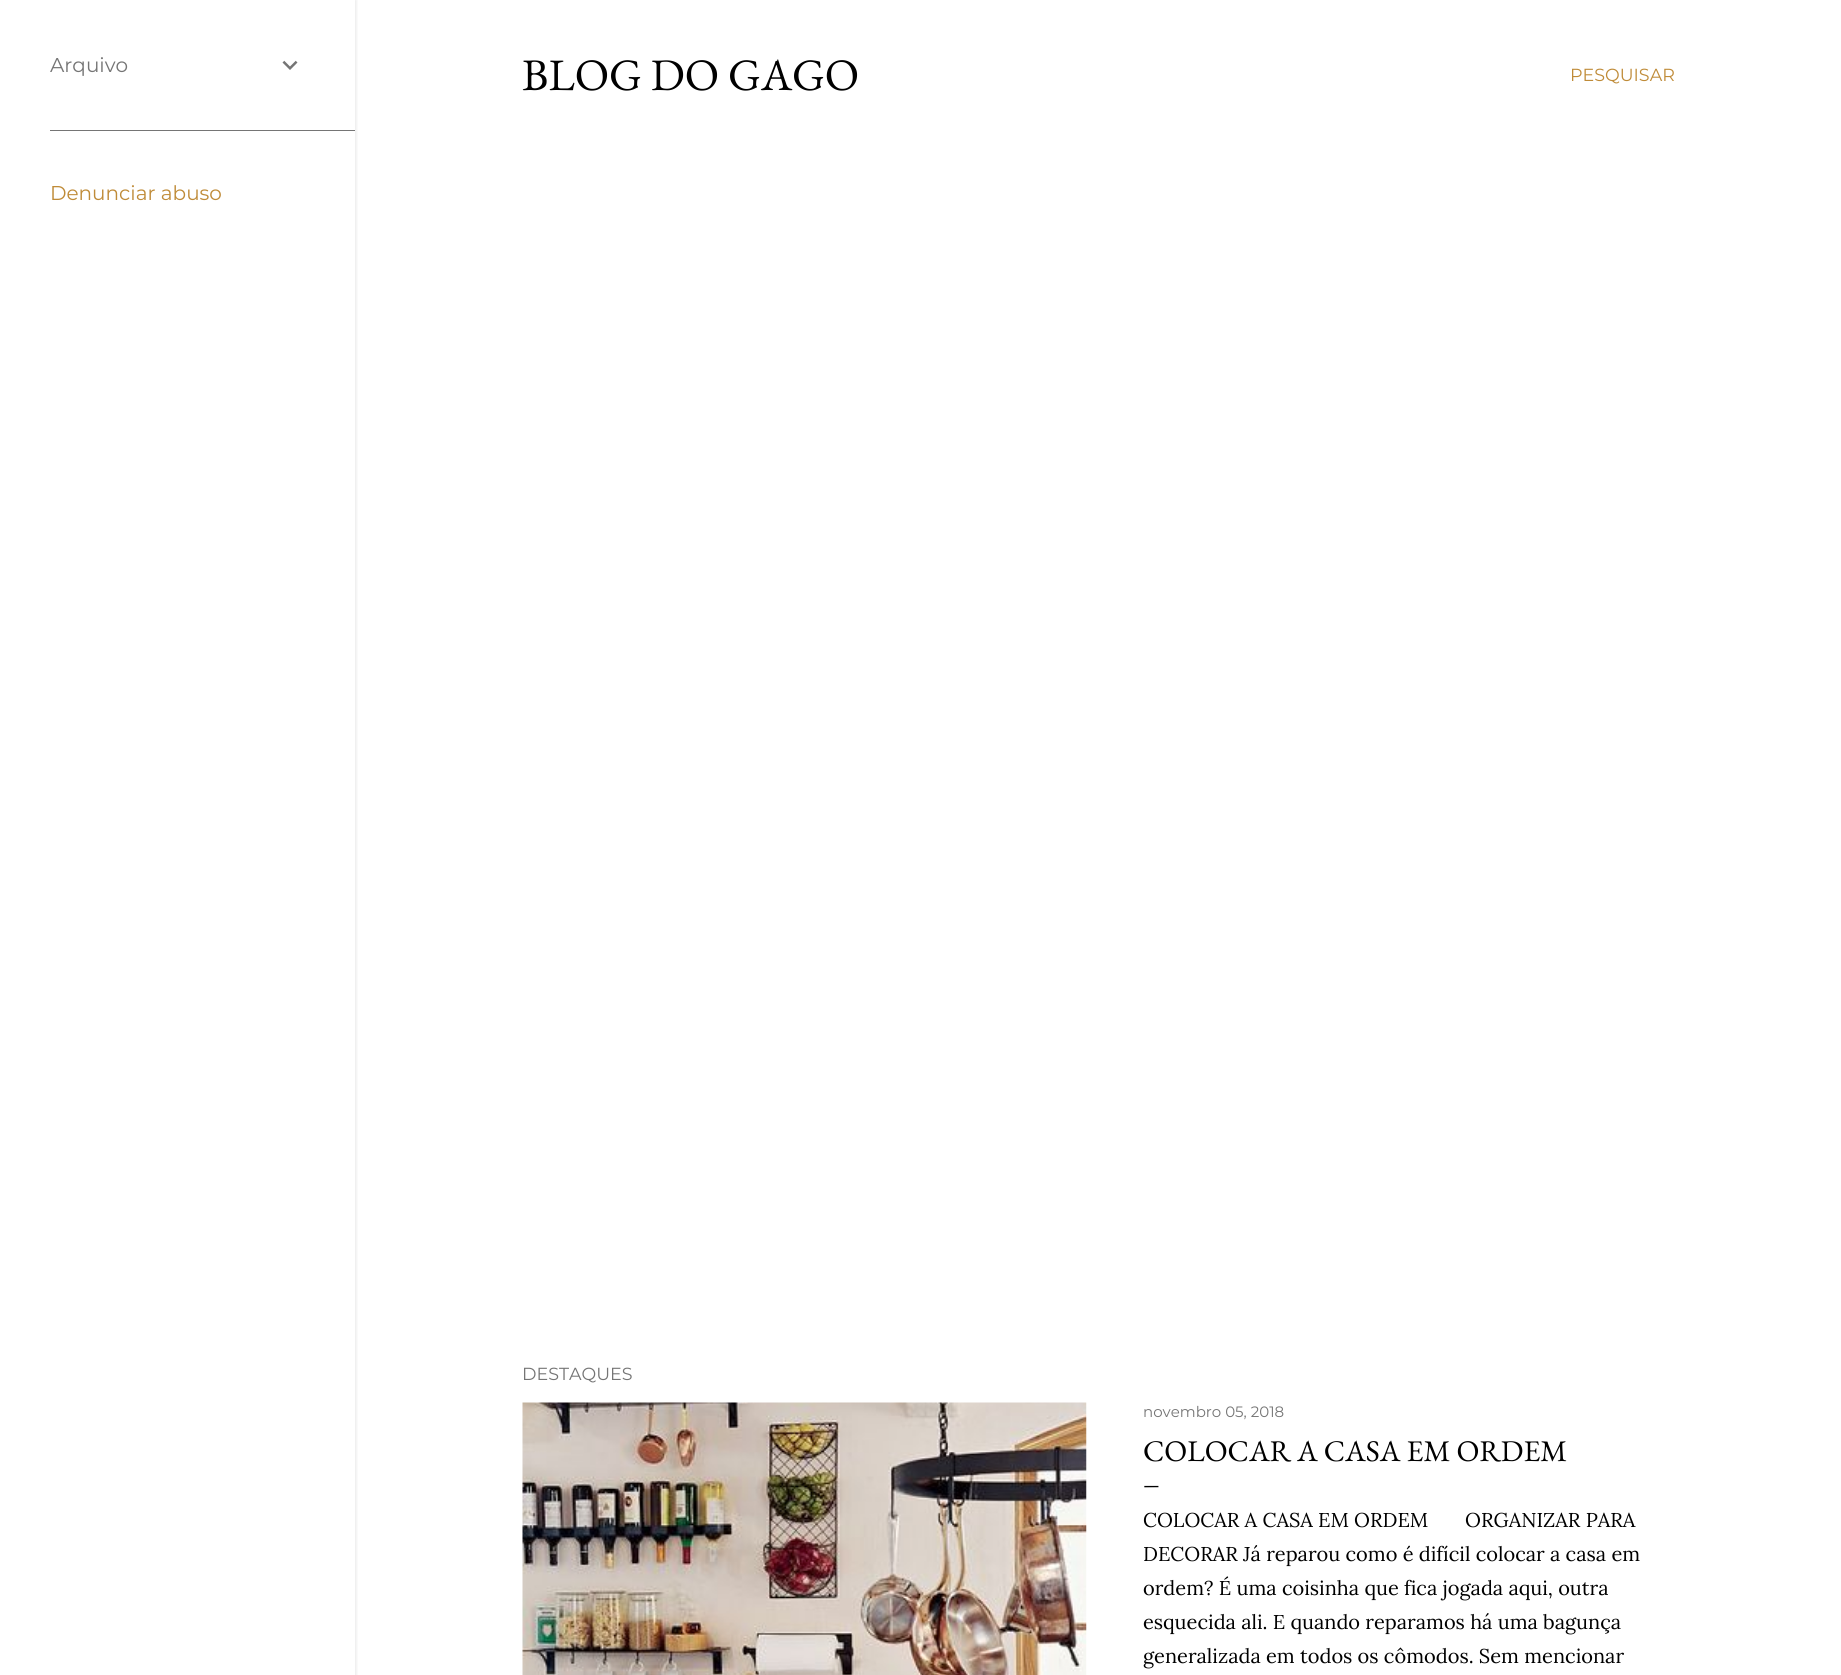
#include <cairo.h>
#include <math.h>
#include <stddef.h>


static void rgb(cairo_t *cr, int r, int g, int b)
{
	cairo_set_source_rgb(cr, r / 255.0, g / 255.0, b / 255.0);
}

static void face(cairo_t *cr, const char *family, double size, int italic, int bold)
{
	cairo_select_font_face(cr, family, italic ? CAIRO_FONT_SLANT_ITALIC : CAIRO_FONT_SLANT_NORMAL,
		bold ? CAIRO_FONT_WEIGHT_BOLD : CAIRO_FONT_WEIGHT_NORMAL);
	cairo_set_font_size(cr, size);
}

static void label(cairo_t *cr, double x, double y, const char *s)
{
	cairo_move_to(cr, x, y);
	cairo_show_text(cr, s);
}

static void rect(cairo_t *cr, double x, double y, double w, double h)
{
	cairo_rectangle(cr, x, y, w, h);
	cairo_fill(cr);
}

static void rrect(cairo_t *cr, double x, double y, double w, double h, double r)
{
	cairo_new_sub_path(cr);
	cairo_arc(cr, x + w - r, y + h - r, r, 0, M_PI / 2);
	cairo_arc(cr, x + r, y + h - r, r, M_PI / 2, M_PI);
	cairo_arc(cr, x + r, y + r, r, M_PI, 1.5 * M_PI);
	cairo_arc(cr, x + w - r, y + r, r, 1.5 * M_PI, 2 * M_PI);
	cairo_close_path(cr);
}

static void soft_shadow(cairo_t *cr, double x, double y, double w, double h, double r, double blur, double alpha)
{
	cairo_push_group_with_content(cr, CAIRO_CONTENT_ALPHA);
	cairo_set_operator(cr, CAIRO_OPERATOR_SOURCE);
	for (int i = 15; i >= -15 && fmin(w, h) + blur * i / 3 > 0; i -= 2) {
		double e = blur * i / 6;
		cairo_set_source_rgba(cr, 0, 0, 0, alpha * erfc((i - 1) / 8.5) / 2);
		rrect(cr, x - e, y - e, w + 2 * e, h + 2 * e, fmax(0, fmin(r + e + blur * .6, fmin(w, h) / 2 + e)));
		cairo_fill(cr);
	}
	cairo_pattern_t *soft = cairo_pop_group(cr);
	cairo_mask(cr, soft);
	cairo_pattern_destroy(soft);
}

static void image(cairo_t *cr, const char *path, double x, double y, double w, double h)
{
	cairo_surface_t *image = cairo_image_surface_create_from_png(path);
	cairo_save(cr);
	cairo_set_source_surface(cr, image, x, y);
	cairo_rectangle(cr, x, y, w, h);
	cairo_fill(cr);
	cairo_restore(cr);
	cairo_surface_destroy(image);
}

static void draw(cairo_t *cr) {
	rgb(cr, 255, 255, 255);
	cairo_paint(cr);
	cairo_save(cr);
	cairo_rectangle(cr, 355, 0, 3, 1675);
	cairo_clip(cr);
	rgb(cr, 0, 0, 0);
	soft_shadow(cr, 1, 0, 355, 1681, 0, 2, 0.1);
	cairo_restore(cr);
	face(cr, "Montserrat", 20, 0, 0);
	rgb(cr, 117, 117, 117);
	label(cr, 50, 72, "Arquivo");
	image(cr, "image0.png", 282, 60, 16, 10);
	rect(cr, 50, 130, 305, 1);
	rgb(cr, 191, 139, 56);
	label(cr, 50, 200, "Denunciar abuso");
	face(cr, "EB Garamond", 45, 0, 0);
	rgb(cr, 0, 0, 0);
	label(cr, 522, 90, "BLOG DO GAGO");
	face(cr, "Montserrat", 17.5, 0, 0);
	rgb(cr, 191, 139, 56);
	label(cr, 1570, 81, "PESQUISAR");
	rgb(cr, 117, 117, 117);
	label(cr, 522, 1380, "DESTAQUES");
	image(cr, "image1.png", 522, 1402, 565, 273);
	face(cr, "Montserrat", 15, 0, 0);
	label(cr, 1143, 1417, "novembro 05, 2018");
	face(cr, "EB Garamond", 30, 0, 0);
	rgb(cr, 0, 0, 0);
	label(cr, 1143, 1461, "COLOCAR A CASA EM ORDEM");
	face(cr, "Lora", 20, 0, 0);
	label(cr, 1143, 1493, "—");
	label(cr, 1143, 1527, "COLOCAR A CASA EM ORDEM");
	label(cr, 1465, 1527, "ORGANIZAR PARA");
	label(cr, 1143, 1561, "DECORAR Já reparou como é difícil colocar a casa em");
	label(cr, 1143, 1595, "ordem? É uma coisinha que fica jogada aqui, outra");
	label(cr, 1143, 1629, "esquecida ali. E quando reparamos há uma bagunça");
	label(cr, 1143, 1663, "generalizada em todos os cômodos. Sem mencionar");
}

int main(void) {
	cairo_surface_t *surface = cairo_image_surface_create(CAIRO_FORMAT_RGB24, 1841, 1675);
	cairo_t *cr = cairo_create(surface);
	cairo_font_options_t *options = cairo_font_options_create();
	cairo_font_options_set_hint_metrics(options, CAIRO_HINT_METRICS_OFF);
	cairo_font_options_set_hint_style(options, CAIRO_HINT_STYLE_NONE);
	cairo_set_font_options(cr, options);
	cairo_set_miter_limit(cr, 4);
	draw(cr);
	cairo_surface_write_to_png(surface, "render.png");
	cairo_font_options_destroy(options);
	cairo_destroy(cr);
	cairo_surface_destroy(surface);
	return 0;
}
